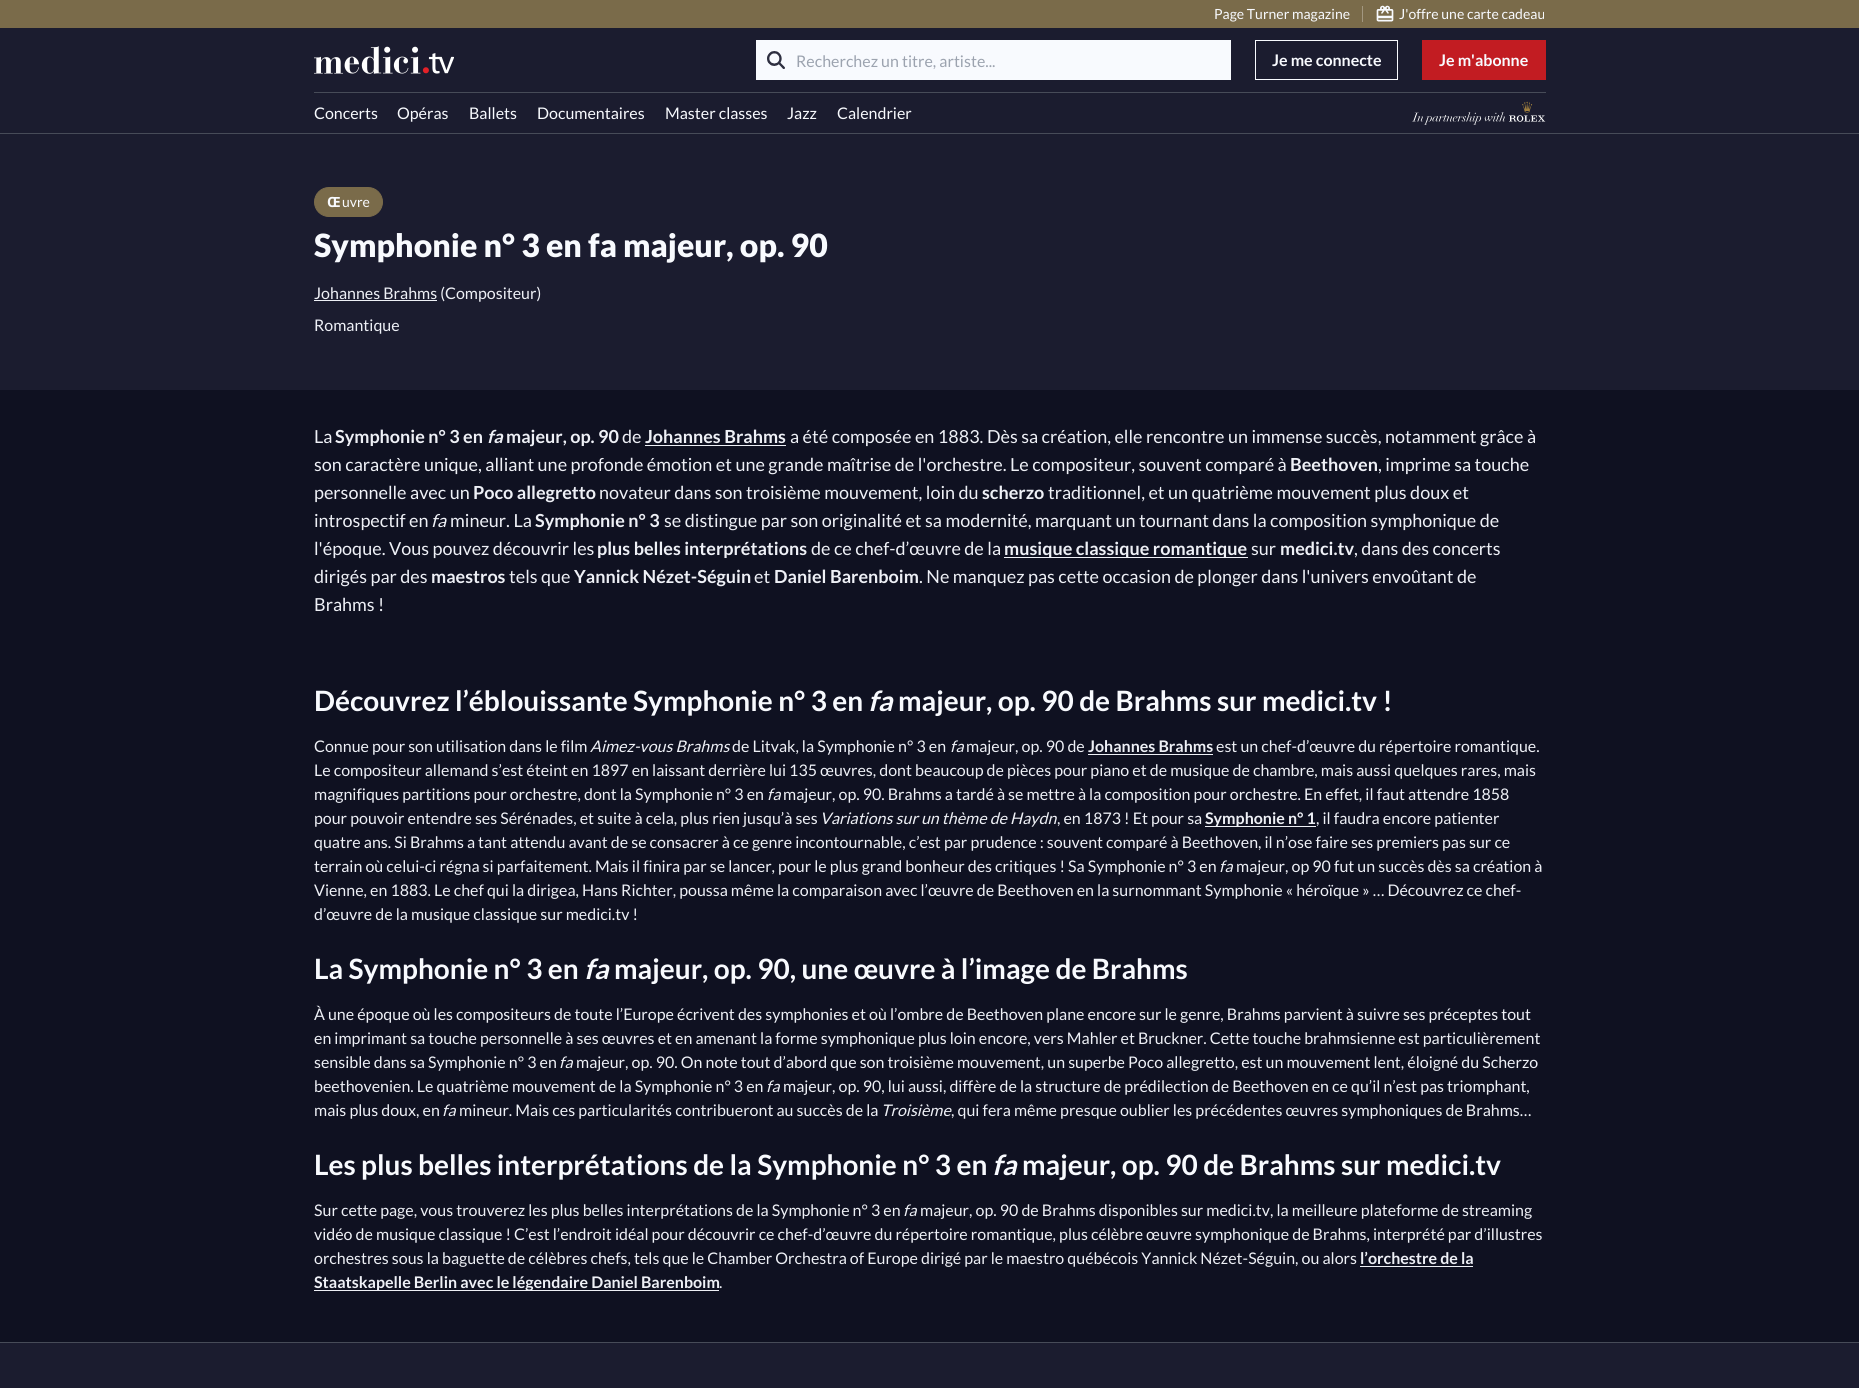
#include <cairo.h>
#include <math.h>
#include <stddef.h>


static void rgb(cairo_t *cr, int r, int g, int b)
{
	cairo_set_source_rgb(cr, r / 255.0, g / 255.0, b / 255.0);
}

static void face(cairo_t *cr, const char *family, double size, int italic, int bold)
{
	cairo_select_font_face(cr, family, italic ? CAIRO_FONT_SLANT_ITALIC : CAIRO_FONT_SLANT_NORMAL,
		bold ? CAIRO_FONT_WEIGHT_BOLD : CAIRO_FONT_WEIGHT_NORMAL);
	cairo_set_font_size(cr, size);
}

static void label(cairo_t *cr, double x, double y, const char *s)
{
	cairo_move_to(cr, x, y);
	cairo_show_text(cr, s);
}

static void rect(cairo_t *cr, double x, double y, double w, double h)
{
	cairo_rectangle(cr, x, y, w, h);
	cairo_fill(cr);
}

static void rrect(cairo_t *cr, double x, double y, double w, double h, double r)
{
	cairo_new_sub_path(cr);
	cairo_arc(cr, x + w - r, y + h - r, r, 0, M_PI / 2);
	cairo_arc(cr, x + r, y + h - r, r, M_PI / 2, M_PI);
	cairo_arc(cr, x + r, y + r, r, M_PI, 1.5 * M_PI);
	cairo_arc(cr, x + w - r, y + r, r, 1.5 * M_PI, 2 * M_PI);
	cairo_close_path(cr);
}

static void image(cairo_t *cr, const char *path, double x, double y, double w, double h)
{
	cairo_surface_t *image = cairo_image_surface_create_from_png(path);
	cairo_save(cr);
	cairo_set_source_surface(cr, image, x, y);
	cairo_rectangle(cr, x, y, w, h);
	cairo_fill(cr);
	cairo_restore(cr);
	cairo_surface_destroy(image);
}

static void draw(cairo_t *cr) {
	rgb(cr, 15, 17, 33);
	cairo_paint(cr);
	rgb(cr, 27, 28, 47);
	rect(cr, 0, 28, 1859, 105);
	rgb(cr, 71, 75, 88);
	rect(cr, 0, 133, 1859, 1);
	rgb(cr, 122, 107, 74);
	rect(cr, 0, 0, 1859, 28);
	face(cr, "Lato", 14, 0, 0);
	rgb(cr, 248, 250, 254);
	label(cr, 1214, 19, "Page Turner magazine");
	rgb(cr, 162, 151, 128);
	rect(cr, 1362, 6, 1, 16);
	image(cr, "image0.png", 1376, 5, 18, 17);
	rgb(cr, 248, 250, 254);
	label(cr, 1399, 19, "J'offre une carte cadeau");
	image(cr, "image1.png", 314, 46, 140, 28);
	rect(cr, 756, 40, 475, 40);
	image(cr, "image2.png", 767, 51, 18, 18);
	face(cr, "Lato", 16, 0, 0);
	rgb(cr, 156, 163, 175);
	label(cr, 796, 67, "Recherchez un titre, artiste...");
	cairo_rectangle(cr, 1255.5, 40.5, 142, 39);
	rgb(cr, 248, 250, 254);
	cairo_set_line_width(cr, 1);
	cairo_stroke(cr);
	face(cr, "Lato", 16, 0, 1);
	label(cr, 1272, 66, "Je me connecte");
	rgb(cr, 194, 28, 34);
	rect(cr, 1422, 40, 124, 40);
	rgb(cr, 248, 250, 254);
	label(cr, 1439, 66, "Je m'abonne");
	rgb(cr, 71, 75, 88);
	rect(cr, 314, 92, 1232, 1);
	face(cr, "Lato", 16, 0, 0);
	rgb(cr, 248, 250, 254);
	label(cr, 314, 119, "Concerts");
	label(cr, 397, 119, "Opéras");
	label(cr, 469, 119, "Ballets");
	label(cr, 537, 119, "Documentaires");
	label(cr, 665, 119, "Master classes");
	label(cr, 787, 119, "Jazz");
	label(cr, 837, 119, "Calendrier");
	image(cr, "image3.png", 1412, 101, 134, 24);
	rgb(cr, 27, 28, 47);
	rect(cr, 0, 134, 1859, 256);
	rgb(cr, 122, 107, 74);
	rrect(cr, 314.5, 187.5, 68, 29, 14.5);
	cairo_fill_preserve(cr);
	cairo_stroke(cr);
	face(cr, "Noto Sans", 14, 0, 1);
	rgb(cr, 248, 250, 254);
	label(cr, 327, 207, "Œ");
	face(cr, "Lato", 14, 0, 0);
	label(cr, 342, 207, "uvre");
	face(cr, "Lato Black", 32, 0, 0);
	label(cr, 314, 257, "Symphonie n° 3 en fa majeur, op. 90");
	rgb(cr, 238, 240, 246);
	rect(cr, 314, 300, 123, 1);
	face(cr, "Lato", 16, 0, 0);
	label(cr, 314, 299, "Johannes Brahms (Compositeur)");
	label(cr, 314, 331, "Romantique");
	face(cr, "Lato", 18, 0, 0);
	label(cr, 314, 443, "La");
	face(cr, "Lato", 18, 0, 1);
	label(cr, 335, 443, "Symphonie n° 3 en");
	face(cr, "Lato", 18, 1, 1);
	label(cr, 487, 443, "fa");
	face(cr, "Lato", 18, 0, 1);
	label(cr, 506, 443, "majeur, op. 90");
	face(cr, "Lato", 18, 0, 0);
	label(cr, 622, 443, "de");
	face(cr, "Lato", 18, 0, 1);
	label(cr, 645, 443, "Johannes Brahms");
	rect(cr, 645, 445, 141, 1);
	face(cr, "Lato", 18, 0, 0);
	label(cr, 790, 443, "a été composée en 1883. Dès sa création, elle rencontre un immense succès, notamment grâce à");
	label(cr, 314, 471, "son caractère unique, alliant une profonde émotion et une grande maîtrise de l'orchestre. Le compositeur, souvent comparé à");
	face(cr, "Lato", 18, 0, 1);
	label(cr, 1290, 471, "Beethoven");
	face(cr, "Lato", 18, 0, 0);
	label(cr, 1378, 471, ", imprime sa touche");
	label(cr, 314, 499, "personnelle avec un");
	face(cr, "Lato", 18, 0, 1);
	label(cr, 473, 499, "Poco allegretto");
	face(cr, "Lato", 18, 0, 0);
	label(cr, 599, 499, "novateur dans son troisième mouvement, loin du");
	face(cr, "Lato", 18, 0, 1);
	label(cr, 982, 499, "scherzo");
	face(cr, "Lato", 18, 0, 0);
	label(cr, 1048, 499, "traditionnel, et un quatrième mouvement plus doux et");
	label(cr, 314, 527, "introspectif en");
	face(cr, "Lato", 18, 1, 0);
	label(cr, 431, 527, "fa");
	face(cr, "Lato", 18, 0, 0);
	label(cr, 450, 527, "mineur. La");
	face(cr, "Lato", 18, 0, 1);
	label(cr, 535, 527, "Symphonie n° 3");
	face(cr, "Lato", 18, 0, 0);
	label(cr, 664, 527, "se distingue par son originalité et sa modernité, marquant un tournant dans la composition symphonique de");
	label(cr, 314, 555, "l'époque. Vous pouvez découvrir les");
	face(cr, "Lato", 18, 0, 1);
	label(cr, 597, 555, "plus belles interprétations");
	face(cr, "Lato", 18, 0, 0);
	label(cr, 811, 555, "de ce chef-d’œuvre de la");
	rect(cr, 1004, 557, 244, 1);
	face(cr, "Lato", 18, 0, 1);
	label(cr, 1004, 555, "musique classique romantique");
	face(cr, "Lato", 18, 0, 0);
	label(cr, 1251, 555, "sur");
	face(cr, "Lato", 18, 0, 1);
	label(cr, 1280, 555, "medici.tv");
	face(cr, "Lato", 18, 0, 0);
	label(cr, 1354, 555, ", dans des concerts");
	label(cr, 314, 583, "dirigés par des");
	face(cr, "Lato", 18, 0, 1);
	label(cr, 431, 583, "maestros");
	face(cr, "Lato", 18, 0, 0);
	label(cr, 509, 583, "tels que");
	face(cr, "Lato", 18, 0, 1);
	label(cr, 574, 583, "Yannick Nézet-Séguin");
	face(cr, "Lato", 18, 0, 0);
	label(cr, 754, 583, "et");
	face(cr, "Lato", 18, 0, 1);
	label(cr, 774, 583, "Daniel Barenboim");
	face(cr, "Lato", 18, 0, 0);
	label(cr, 919, 583, ". Ne manquez pas cette occasion de plonger dans l'univers envoûtant de");
	label(cr, 314, 611, "Brahms !");
	face(cr, "Lato", 28, 0, 1);
	rgb(cr, 248, 250, 254);
	label(cr, 314, 711, "Découvrez l’éblouissante Symphonie n° 3 en");
	face(cr, "Lato", 28, 1, 1);
	label(cr, 868, 711, "fa");
	face(cr, "Lato", 28, 0, 1);
	label(cr, 898, 711, "majeur, op. 90 de Brahms sur medici.tv !");
	face(cr, "Lato", 16, 0, 0);
	rgb(cr, 238, 240, 246);
	label(cr, 314, 752, "Connue pour son utilisation dans le film");
	face(cr, "Lato", 16, 1, 0);
	label(cr, 590, 752, "Aimez-vous Brahms");
	face(cr, "Lato", 16, 0, 0);
	label(cr, 732, 752, "de Litvak, la Symphonie n° 3 en");
	face(cr, "Lato", 16, 1, 0);
	label(cr, 950, 752, "fa");
	face(cr, "Lato", 16, 0, 0);
	label(cr, 966, 752, "majeur, op. 90 de");
	face(cr, "Lato", 16, 0, 1);
	label(cr, 1088, 752, "Johannes Brahms");
	rect(cr, 1088, 754, 125, 1);
	face(cr, "Lato", 16, 0, 0);
	label(cr, 1216, 752, "est un chef-d’œuvre du répertoire romantique.");
	label(cr, 314, 776, "Le compositeur allemand s’est éteint en 1897 en laissant derrière lui 135 œuvres, dont beaucoup de pièces pour piano et de musique de chambre, mais aussi quelques rares, mais");
	label(cr, 314, 800, "magnifiques partitions pour orchestre, dont la Symphonie n° 3 en");
	face(cr, "Lato", 16, 1, 0);
	label(cr, 767, 800, "fa");
	face(cr, "Lato", 16, 0, 0);
	label(cr, 783, 800, "majeur, op. 90. Brahms a tardé à se mettre à la composition pour orchestre. En effet, il faut attendre 1858");
	label(cr, 314, 824, "pour pouvoir entendre ses Sérénades, et suite à cela, plus rien jusqu’à ses");
	face(cr, "Lato", 16, 1, 0);
	label(cr, 820, 824, "Variations sur un thème de Haydn");
	face(cr, "Lato", 16, 0, 0);
	label(cr, 1057, 824, ", en 1873 ! Et pour sa");
	rect(cr, 1205, 826, 111, 1);
	face(cr, "Lato", 16, 0, 1);
	label(cr, 1205, 824, "Symphonie n° 1");
	face(cr, "Lato", 16, 0, 0);
	label(cr, 1316, 824, ", il faudra encore patienter");
	label(cr, 314, 848, "quatre ans. Si Brahms a tant attendu avant de se consacrer à ce genre incontournable, c’est par prudence : souvent comparé à Beethoven, il n’ose faire ses premiers pas sur ce");
	label(cr, 314, 872, "terrain où celui-ci régna si parfaitement. Mais il finira par se lancer, pour le plus grand bonheur des critiques ! Sa Symphonie n° 3 en");
	face(cr, "Lato", 16, 1, 0);
	label(cr, 1219, 872, "fa");
	face(cr, "Lato", 16, 0, 0);
	label(cr, 1236, 872, "majeur, op 90 fut un succès dès sa création à");
	label(cr, 314, 896, "Vienne, en 1883. Le chef qui la dirigea, Hans Richter, poussa même la comparaison avec l’œuvre de Beethoven en la surnommant Symphonie « héroïque » … Découvrez ce chef-");
	label(cr, 314, 920, "d’œuvre de la musique classique sur medici.tv !");
	face(cr, "Lato", 28, 0, 1);
	rgb(cr, 248, 250, 254);
	label(cr, 314, 979, "La Symphonie n° 3 en");
	face(cr, "Lato", 28, 1, 1);
	label(cr, 584, 979, "fa");
	face(cr, "Lato", 28, 0, 1);
	label(cr, 614, 979, "majeur, op. 90, une œuvre à l’image de Brahms");
	face(cr, "Lato", 16, 0, 0);
	rgb(cr, 238, 240, 246);
	label(cr, 314, 1020, "À une époque où les compositeurs de toute l’Europe écrivent des symphonies et où l’ombre de Beethoven plane encore sur le genre, Brahms parvient à suivre ses préceptes tout");
	label(cr, 314, 1044, "en imprimant sa touche personnelle à ses œuvres et en amenant la forme symphonique plus loin encore, vers Mahler et Bruckner. Cette touche brahmsienne est particulièrement");
	label(cr, 314, 1068, "sensible dans sa Symphonie n° 3 en");
	face(cr, "Lato", 16, 1, 0);
	label(cr, 559, 1068, "fa");
	face(cr, "Lato", 16, 0, 0);
	label(cr, 576, 1068, "majeur, op. 90. On note tout d’abord que son troisième mouvement, un superbe Poco allegretto, est un mouvement lent, éloigné du Scherzo");
	label(cr, 314, 1092, "beethovenien. Le quatrième mouvement de la Symphonie n° 3 en");
	face(cr, "Lato", 16, 1, 0);
	label(cr, 766, 1092, "fa");
	face(cr, "Lato", 16, 0, 0);
	label(cr, 783, 1092, "majeur, op. 90, lui aussi, diffère de la structure de prédilection de Beethoven en ce qu’il n’est pas triomphant,");
	label(cr, 314, 1116, "mais plus doux, en");
	face(cr, "Lato", 16, 1, 0);
	label(cr, 442, 1116, "fa");
	face(cr, "Lato", 16, 0, 0);
	label(cr, 459, 1116, "mineur. Mais ces particularités contribueront au succès de la");
	face(cr, "Lato", 16, 1, 0);
	label(cr, 881, 1116, "Troisième");
	face(cr, "Lato", 16, 0, 0);
	label(cr, 951, 1116, ", qui fera même presque oublier les précédentes œuvres symphoniques de Brahms…");
	face(cr, "Lato", 28, 0, 1);
	rgb(cr, 248, 250, 254);
	label(cr, 314, 1175, "Les plus belles interprétations de la Symphonie n° 3 en");
	face(cr, "Lato", 28, 1, 1);
	label(cr, 992, 1175, "fa");
	face(cr, "Lato", 28, 0, 1);
	label(cr, 1022, 1175, "majeur, op. 90 de Brahms sur medici.tv");
	face(cr, "Lato", 16, 0, 0);
	rgb(cr, 238, 240, 246);
	label(cr, 314, 1216, "Sur cette page, vous trouverez les plus belles interprétations de la Symphonie n° 3 en");
	face(cr, "Lato", 16, 1, 0);
	label(cr, 903, 1216, "fa");
	face(cr, "Lato", 16, 0, 0);
	label(cr, 920, 1216, "majeur, op. 90 de Brahms disponibles sur medici.tv, la meilleure plateforme de streaming");
	label(cr, 314, 1240, "vidéo de musique classique ! C’est l’endroit idéal pour découvrir ce chef-d’œuvre du répertoire romantique, plus célèbre œuvre symphonique de Brahms, interprété par d’illustres");
	label(cr, 314, 1264, "orchestres sous la baguette de célèbres chefs, tels que le Chamber Orchestra of Europe dirigé par le maestro québécois Yannick Nézet-Séguin, ou alors");
	face(cr, "Lato", 16, 0, 1);
	label(cr, 1360, 1264, "l’orchestre de la");
	rect(cr, 1360, 1266, 113, 1);
	rect(cr, 314, 1290, 405, 1);
	label(cr, 314, 1288, "Staatskapelle Berlin avec le légendaire Daniel Barenboim");
	face(cr, "Lato", 16, 0, 0);
	label(cr, 719, 1288, ".");
	rgb(cr, 27, 28, 47);
	rect(cr, 0, 1343, 1859, 45);
	rgb(cr, 71, 75, 88);
	rect(cr, 0, 1342, 1859, 1);
}

int main(void) {
	cairo_surface_t *surface = cairo_image_surface_create(CAIRO_FORMAT_RGB24, 1859, 1388);
	cairo_t *cr = cairo_create(surface);
	cairo_font_options_t *options = cairo_font_options_create();
	cairo_font_options_set_hint_metrics(options, CAIRO_HINT_METRICS_OFF);
	cairo_font_options_set_hint_style(options, CAIRO_HINT_STYLE_NONE);
	cairo_set_font_options(cr, options);
	cairo_set_miter_limit(cr, 4);
	draw(cr);
	cairo_surface_write_to_png(surface, "render.png");
	cairo_font_options_destroy(options);
	cairo_destroy(cr);
	cairo_surface_destroy(surface);
	return 0;
}
